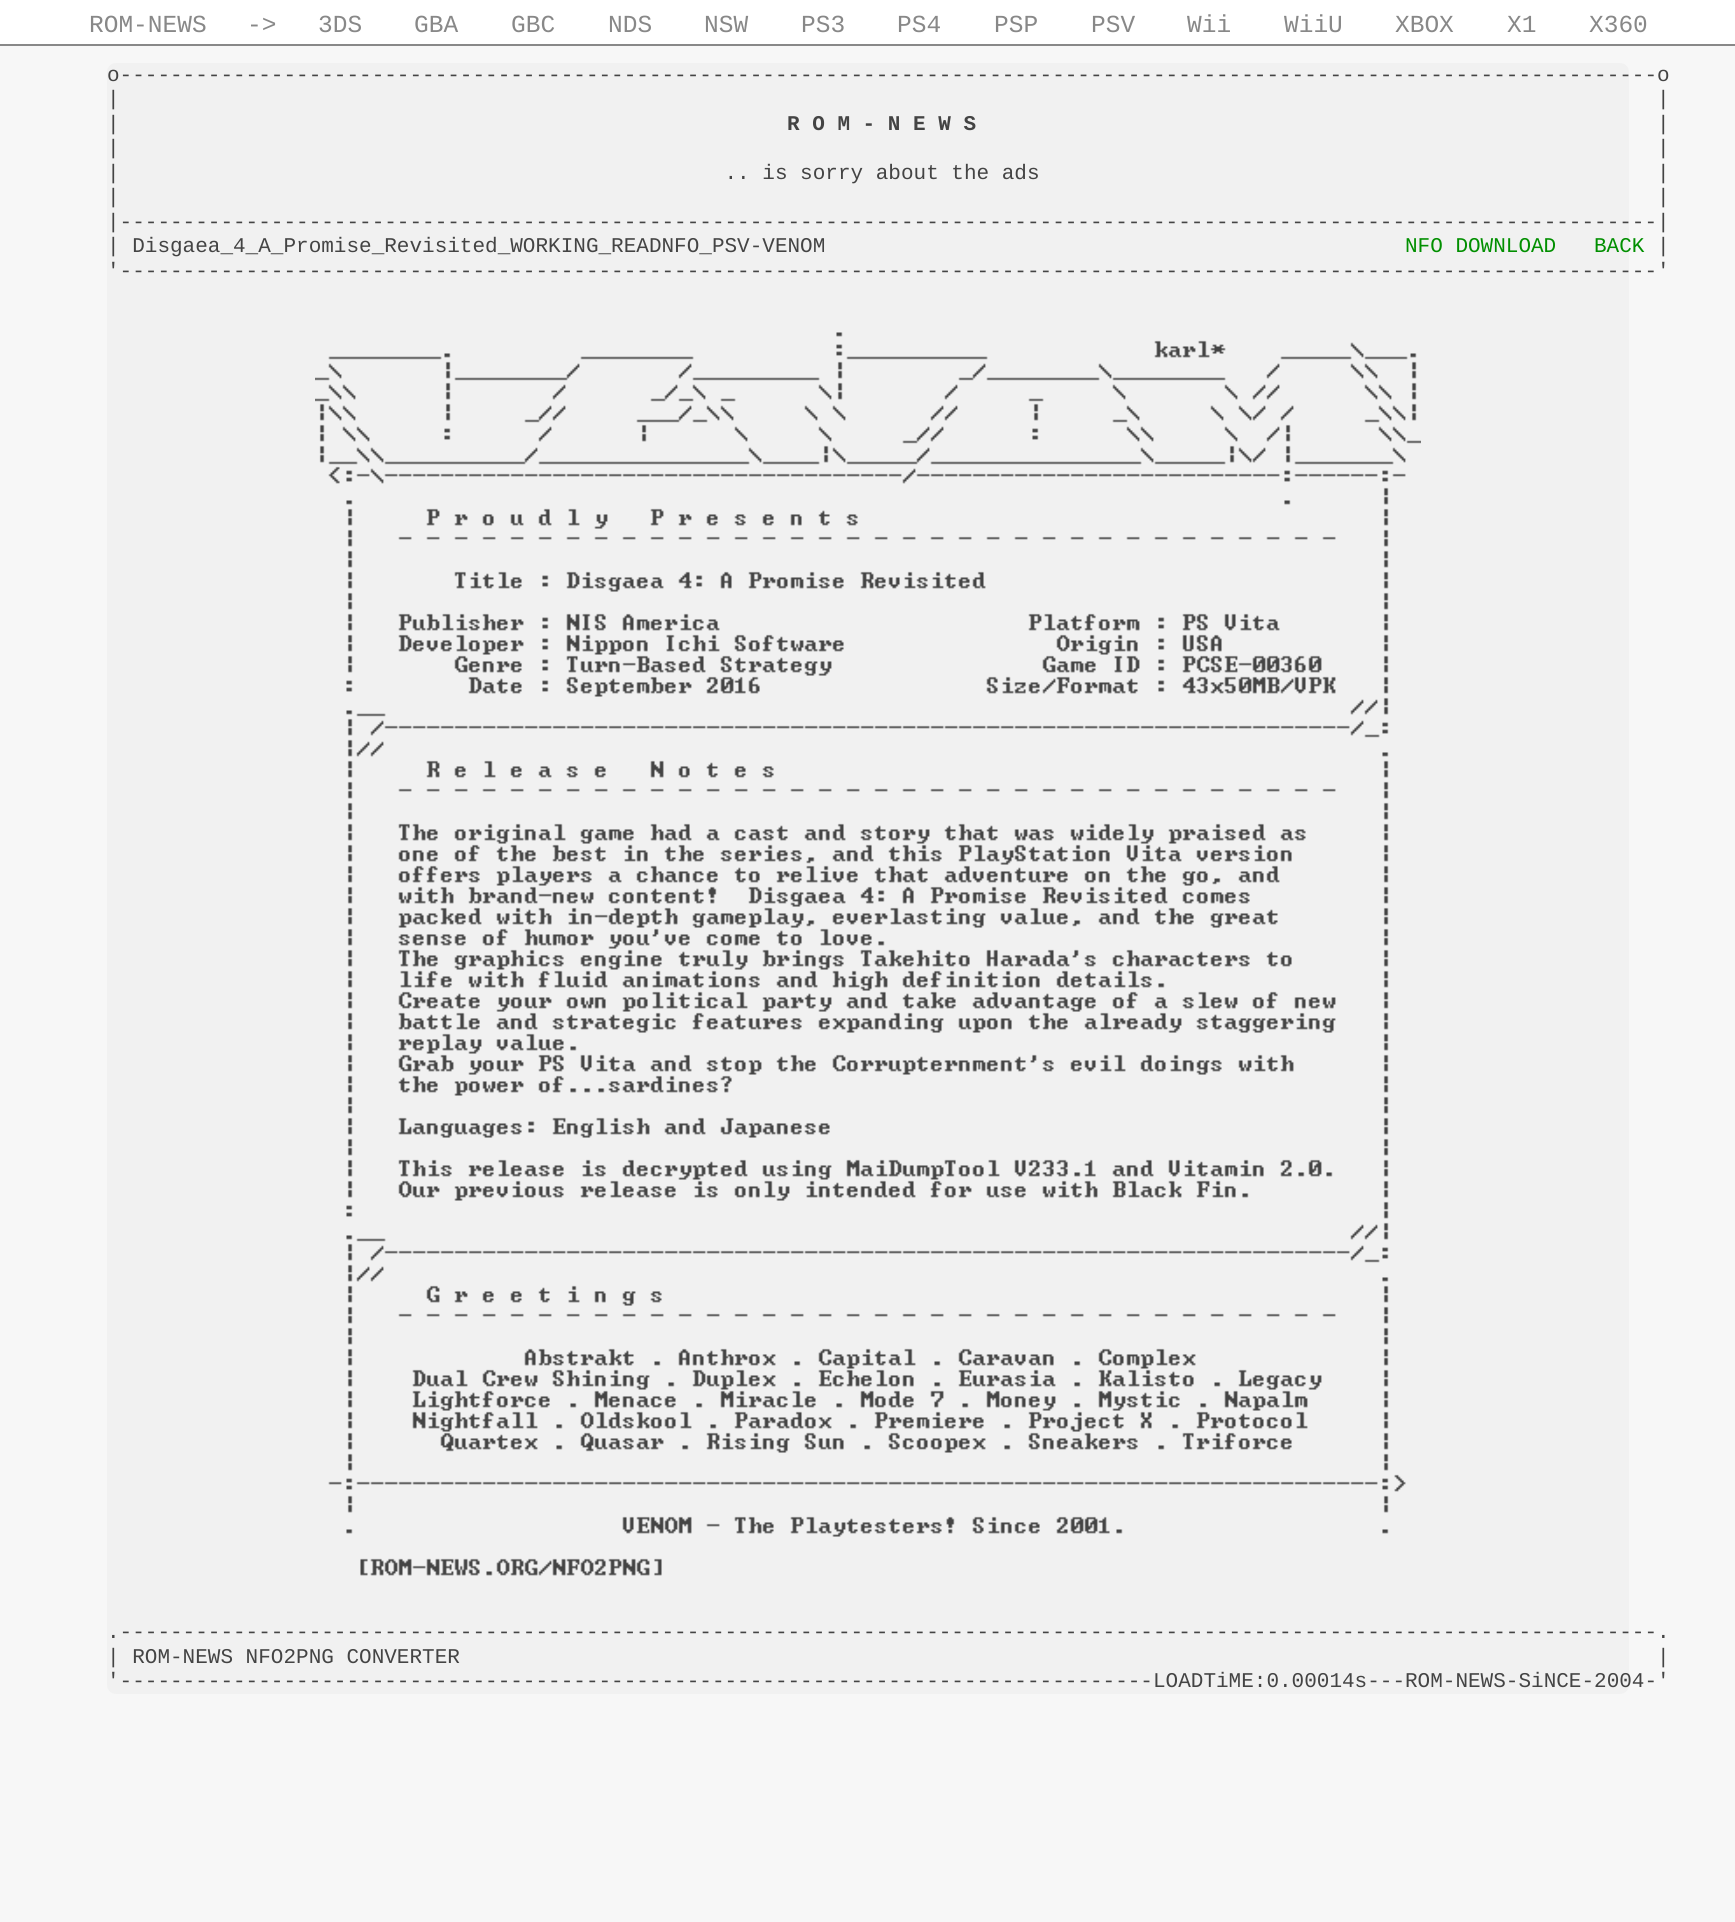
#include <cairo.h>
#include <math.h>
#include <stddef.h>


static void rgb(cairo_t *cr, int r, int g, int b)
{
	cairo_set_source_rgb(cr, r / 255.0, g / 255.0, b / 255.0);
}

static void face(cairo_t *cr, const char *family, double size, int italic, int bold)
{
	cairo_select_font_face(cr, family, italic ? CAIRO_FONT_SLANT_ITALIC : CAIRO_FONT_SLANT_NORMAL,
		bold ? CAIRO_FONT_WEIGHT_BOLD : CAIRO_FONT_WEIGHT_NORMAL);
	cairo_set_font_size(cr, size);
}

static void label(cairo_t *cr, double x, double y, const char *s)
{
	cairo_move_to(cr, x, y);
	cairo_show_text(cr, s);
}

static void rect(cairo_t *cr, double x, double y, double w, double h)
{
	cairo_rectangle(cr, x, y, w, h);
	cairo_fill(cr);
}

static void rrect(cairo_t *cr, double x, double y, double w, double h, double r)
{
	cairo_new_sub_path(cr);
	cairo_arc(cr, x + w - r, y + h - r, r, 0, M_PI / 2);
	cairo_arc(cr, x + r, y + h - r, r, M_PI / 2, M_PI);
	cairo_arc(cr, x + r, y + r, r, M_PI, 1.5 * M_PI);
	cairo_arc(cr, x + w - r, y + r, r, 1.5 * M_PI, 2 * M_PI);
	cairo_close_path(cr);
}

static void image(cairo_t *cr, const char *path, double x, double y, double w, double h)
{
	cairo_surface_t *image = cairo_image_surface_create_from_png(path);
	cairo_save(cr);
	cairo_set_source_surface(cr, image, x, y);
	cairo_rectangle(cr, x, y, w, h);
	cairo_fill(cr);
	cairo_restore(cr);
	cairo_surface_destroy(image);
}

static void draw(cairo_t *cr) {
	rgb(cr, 247, 247, 247);
	cairo_paint(cr);
	rgb(cr, 255, 255, 255);
	rect(cr, 0, 0, 1735, 44);
	rgb(cr, 136, 136, 136);
	rect(cr, 0, 44, 1735, 2);
	face(cr, "Liberation Mono", 24.5, 0, 0);
	label(cr, 89, 32, "ROM-NEWS");
	label(cr, 247, 32, "->");
	label(cr, 318, 32, "3DS");
	label(cr, 414, 32, "GBA");
	label(cr, 511, 32, "GBC");
	label(cr, 608, 32, "NDS");
	label(cr, 704, 32, "NSW");
	label(cr, 801, 32, "PS3");
	label(cr, 897, 32, "PS4");
	label(cr, 994, 32, "PSP");
	label(cr, 1091, 32, "PSV");
	label(cr, 1187, 32, "Wii");
	label(cr, 1284, 32, "WiiU");
	label(cr, 1395, 32, "XBOX");
	label(cr, 1507, 32, "X1");
	label(cr, 1589, 32, "X360");
	rgb(cr, 241, 241, 241);
	rrect(cr, 107, 63, 1522, 1631, 9);
	cairo_fill(cr);
	face(cr, "Liberation Mono", 21, 0, 0);
	rgb(cr, 68, 68, 68);
	label(cr, 107, 81, "o--------------------------------------------------------------------------------------------------------------------------o");
	label(cr, 107, 105, "|                                                                                                                          |");
	label(cr, 107, 130, "|");
	face(cr, "Liberation Mono", 21, 0, 1);
	label(cr, 787, 130, "R O M - N E W S");
	face(cr, "Liberation Mono", 21, 0, 0);
	label(cr, 1657, 130, "|");
	label(cr, 107, 154, "|                                                                                                                          |");
	label(cr, 107, 179, "|                                                .. is sorry about the ads                                                 |");
	label(cr, 107, 203, "|                                                                                                                          |");
	label(cr, 107, 228, "|--------------------------------------------------------------------------------------------------------------------------|");
	label(cr, 107, 252, "| Disgaea_4_A_Promise_Revisited_WORKING_READNFO_PSV-VENOM");
	rgb(cr, 1, 143, 0);
	label(cr, 1405, 252, "NFO DOWNLOAD");
	label(cr, 1594, 252, "BACK");
	rgb(cr, 68, 68, 68);
	label(cr, 1657, 252, "|");
	label(cr, 107, 277, "'--------------------------------------------------------------------------------------------------------------------------'");
	image(cr, "image0.png", 315, 332, 1106, 1244);
	label(cr, 107, 1638, ".--------------------------------------------------------------------------------------------------------------------------.");
	label(cr, 107, 1663, "| ROM-NEWS NFO2PNG CONVERTER                                                                                               |");
	label(cr, 107, 1687, "'----------------------------------------------------------------------------------LOADTiME:0.00014s---ROM-NEWS-SiNCE-2004-'");
}

int main(void) {
	cairo_surface_t *surface = cairo_image_surface_create(CAIRO_FORMAT_RGB24, 1735, 1922);
	cairo_t *cr = cairo_create(surface);
	cairo_font_options_t *options = cairo_font_options_create();
	cairo_font_options_set_hint_metrics(options, CAIRO_HINT_METRICS_OFF);
	cairo_font_options_set_hint_style(options, CAIRO_HINT_STYLE_NONE);
	cairo_set_font_options(cr, options);
	cairo_set_miter_limit(cr, 4);
	draw(cr);
	cairo_surface_write_to_png(surface, "render.png");
	cairo_font_options_destroy(options);
	cairo_destroy(cr);
	cairo_surface_destroy(surface);
	return 0;
}
